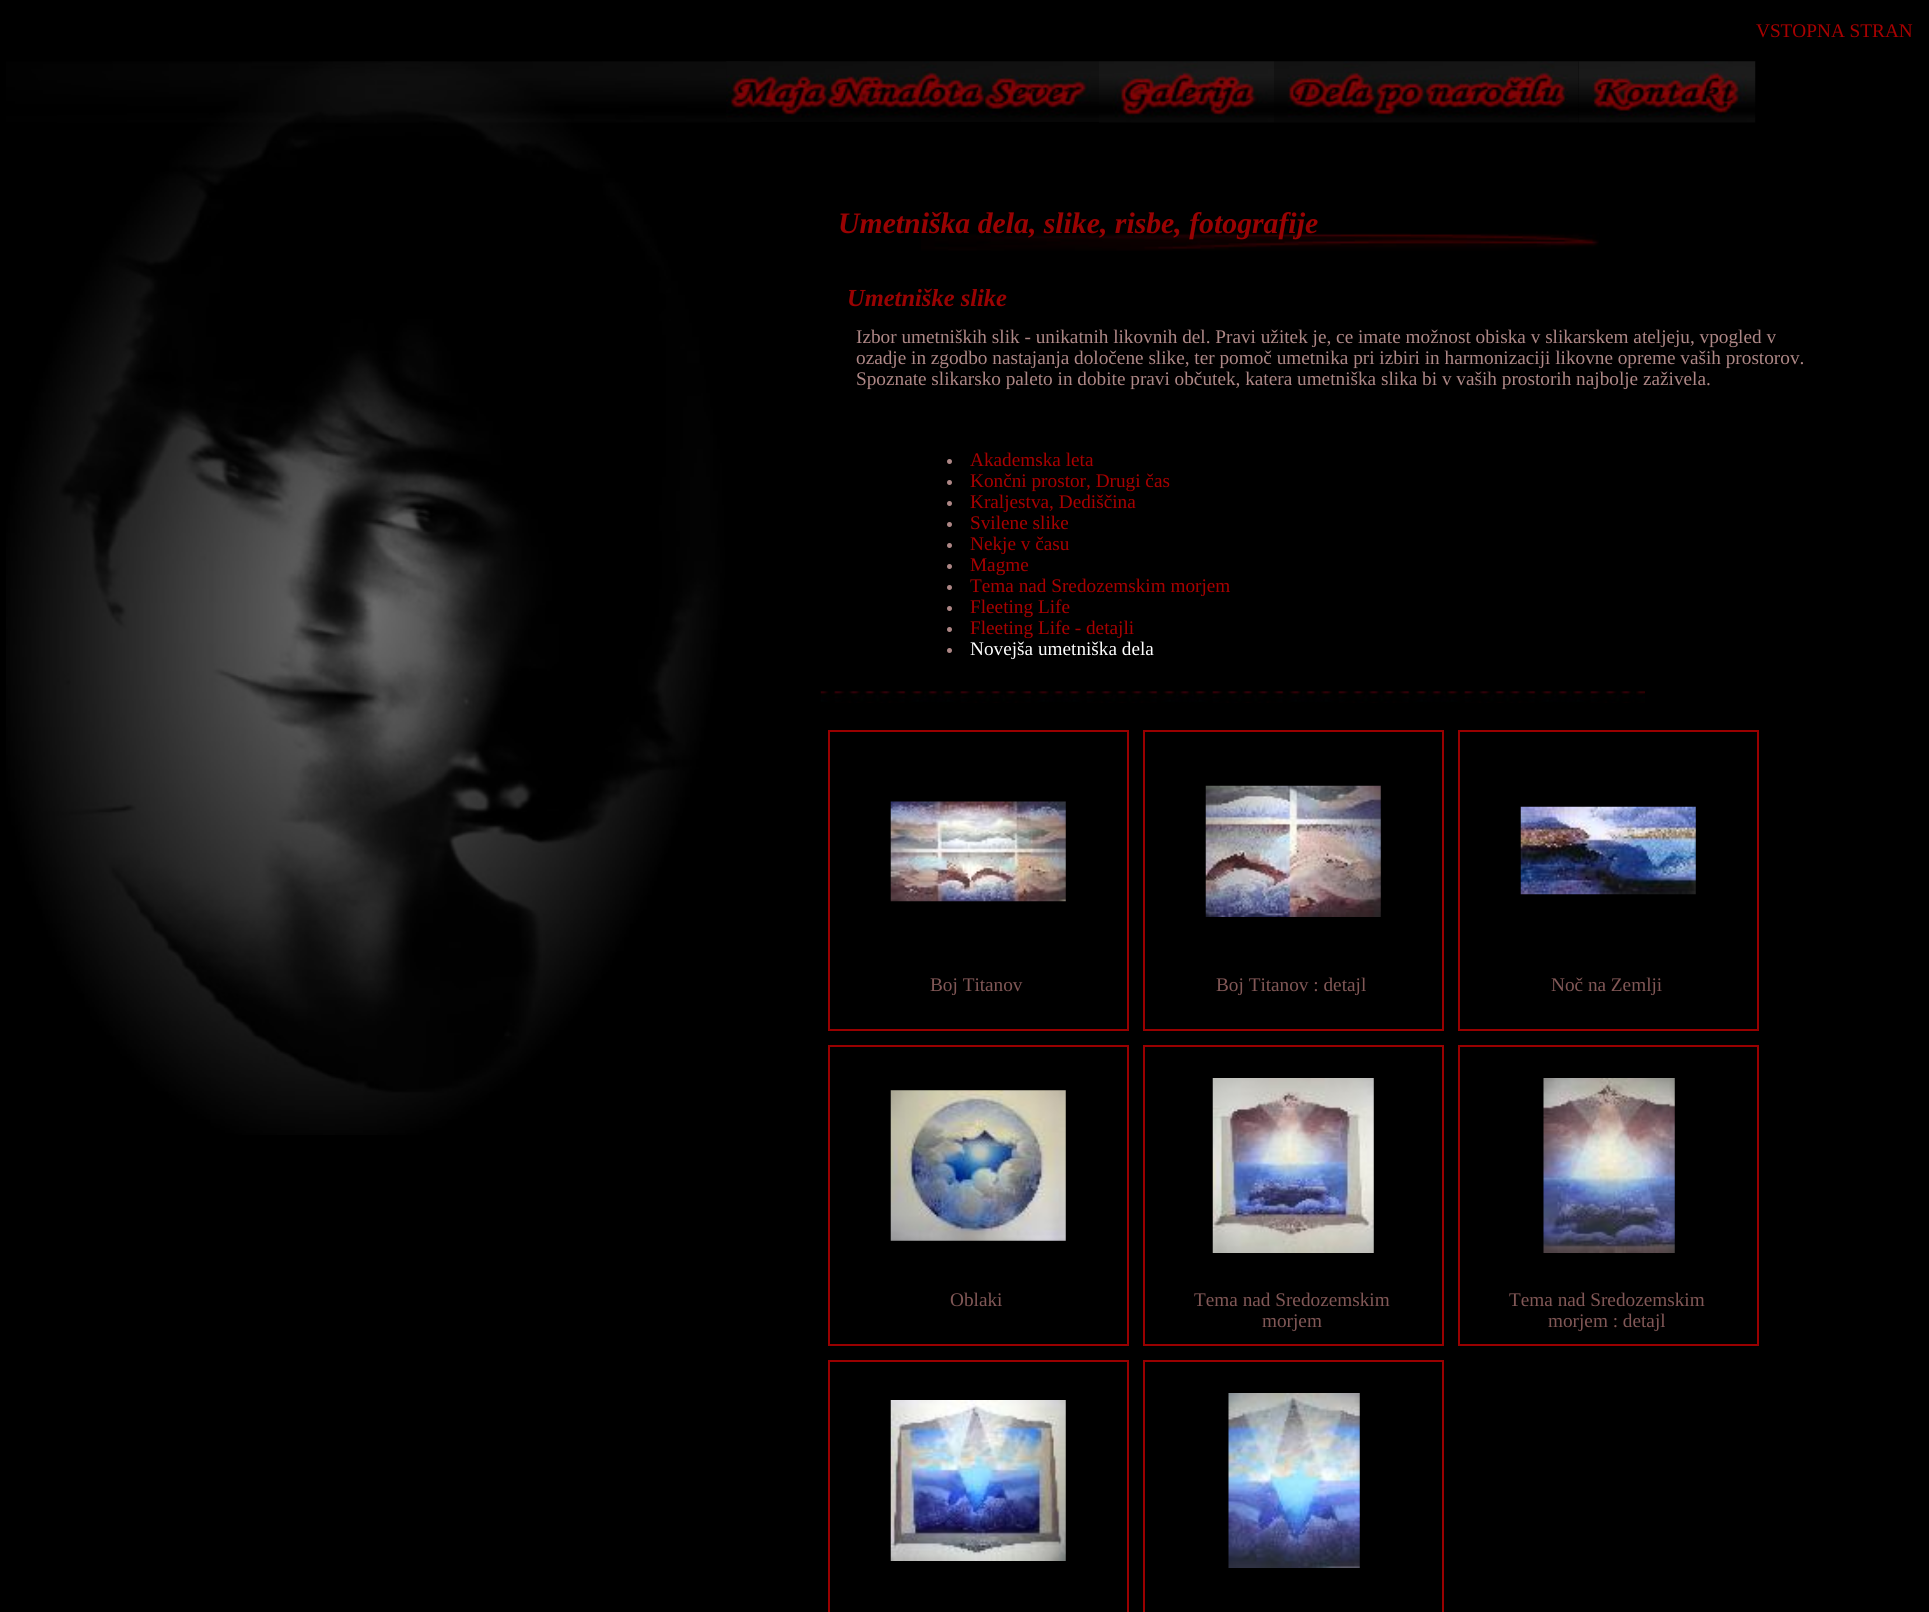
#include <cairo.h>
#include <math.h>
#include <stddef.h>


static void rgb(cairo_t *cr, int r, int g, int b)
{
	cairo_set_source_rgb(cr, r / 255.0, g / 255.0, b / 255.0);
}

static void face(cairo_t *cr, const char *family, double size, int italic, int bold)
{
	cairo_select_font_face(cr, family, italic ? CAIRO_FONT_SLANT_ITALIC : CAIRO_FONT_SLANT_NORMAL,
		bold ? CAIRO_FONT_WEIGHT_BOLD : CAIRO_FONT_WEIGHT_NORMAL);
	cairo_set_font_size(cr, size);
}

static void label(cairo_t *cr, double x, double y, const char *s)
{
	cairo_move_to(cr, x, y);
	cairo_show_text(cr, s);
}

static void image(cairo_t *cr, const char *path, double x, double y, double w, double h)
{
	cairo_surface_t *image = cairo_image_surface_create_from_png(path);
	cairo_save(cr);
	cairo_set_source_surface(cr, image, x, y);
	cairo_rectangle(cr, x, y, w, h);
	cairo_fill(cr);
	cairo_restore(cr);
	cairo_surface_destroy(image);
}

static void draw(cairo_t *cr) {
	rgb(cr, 0, 0, 0);
	cairo_paint(cr);
	face(cr, "Liberation Serif", 19.25, 0, 0);
	rgb(cr, 168, 0, 0);
	label(cr, 1756, 37, "VSTOPNA STRAN");
	image(cr, "image0.png", 6, 61, 745, 1074);
	image(cr, "image1.png", 726, 61, 373, 61);
	image(cr, "image2.png", 1099, 61, 175, 62);
	image(cr, "image3.png", 1274, 61, 305, 62);
	image(cr, "image4.png", 1578, 61, 178, 62);
	image(cr, "image5.png", 921, 233, 678, 18);
	face(cr, "Liberation Serif", 29.75, 1, 1);
	rgb(cr, 153, 2, 2);
	label(cr, 838, 233, "Umetniška dela, slike, risbe, fotografije");
	face(cr, "Liberation Serif", 24.5, 1, 1);
	label(cr, 847, 306, "Umetniške slike");
	face(cr, "Liberation Serif", 19.25, 0, 0);
	rgb(cr, 174, 135, 134);
	label(cr, 856, 343, "Izbor umetniških slik - unikatnih likovnih del. Pravi užitek je, ce imate možnost obiska v slikarskem ateljeju, vpogled v");
	label(cr, 856, 364, "ozadje in zgodbo nastajanja določene slike, ter pomoč umetnika pri izbiri in harmonizaciji likovne opreme vaših prostorov.");
	label(cr, 856, 385, "Spoznate slikarsko paleto in dobite pravi občutek, katera umetniška slika bi v vaših prostorih najbolje zaživela.");
	cairo_new_path(cr);
	cairo_arc(cr, 949.5, 461.5, 2.5, 0, 2 * M_PI);
	cairo_fill(cr);
	rgb(cr, 168, 0, 0);
	label(cr, 970, 466, "Akademska leta");
	rgb(cr, 174, 135, 134);
	cairo_new_path(cr);
	cairo_arc(cr, 949.5, 482.5, 2.5, 0, 2 * M_PI);
	cairo_fill(cr);
	rgb(cr, 168, 0, 0);
	label(cr, 970, 487, "Končni prostor, Drugi čas");
	rgb(cr, 174, 135, 134);
	cairo_new_path(cr);
	cairo_arc(cr, 949.5, 503.5, 2.5, 0, 2 * M_PI);
	cairo_fill(cr);
	rgb(cr, 168, 0, 0);
	label(cr, 970, 508, "Kraljestva, Dediščina");
	rgb(cr, 174, 135, 134);
	cairo_new_path(cr);
	cairo_arc(cr, 949.5, 524.5, 2.5, 0, 2 * M_PI);
	cairo_fill(cr);
	rgb(cr, 168, 0, 0);
	label(cr, 970, 529, "Svilene slike");
	rgb(cr, 174, 135, 134);
	cairo_new_path(cr);
	cairo_arc(cr, 949.5, 545.5, 2.5, 0, 2 * M_PI);
	cairo_fill(cr);
	rgb(cr, 168, 0, 0);
	label(cr, 970, 550, "Nekje v času");
	rgb(cr, 174, 135, 134);
	cairo_new_path(cr);
	cairo_arc(cr, 949.5, 566.5, 2.5, 0, 2 * M_PI);
	cairo_fill(cr);
	rgb(cr, 168, 0, 0);
	label(cr, 970, 571, "Magme");
	rgb(cr, 174, 135, 134);
	cairo_new_path(cr);
	cairo_arc(cr, 949.5, 587.5, 2.5, 0, 2 * M_PI);
	cairo_fill(cr);
	rgb(cr, 168, 0, 0);
	label(cr, 970, 592, "Tema nad Sredozemskim morjem");
	rgb(cr, 174, 135, 134);
	cairo_new_path(cr);
	cairo_arc(cr, 949.5, 608.5, 2.5, 0, 2 * M_PI);
	cairo_fill(cr);
	rgb(cr, 168, 0, 0);
	label(cr, 970, 613, "Fleeting Life");
	rgb(cr, 174, 135, 134);
	cairo_new_path(cr);
	cairo_arc(cr, 949.5, 629.5, 2.5, 0, 2 * M_PI);
	cairo_fill(cr);
	rgb(cr, 168, 0, 0);
	label(cr, 970, 634, "Fleeting Life - detajli");
	rgb(cr, 174, 135, 134);
	cairo_new_path(cr);
	cairo_arc(cr, 949.5, 650.5, 2.5, 0, 2 * M_PI);
	cairo_fill(cr);
	rgb(cr, 255, 255, 255);
	label(cr, 970, 655, "Novejša umetniška dela");
	image(cr, "image6.png", 820, 691, 825, 12);
	cairo_rectangle(cr, 829, 731, 299, 299);
	rgb(cr, 153, 0, 0);
	cairo_stroke(cr);
	image(cr, "image7.png", 890, 801, 176, 101);
	rgb(cr, 129, 87, 86);
	label(cr, 930, 991, "Boj Titanov");
	cairo_rectangle(cr, 1144, 731, 299, 299);
	rgb(cr, 153, 0, 0);
	cairo_stroke(cr);
	image(cr, "image8.png", 1205, 785, 176, 132);
	rgb(cr, 129, 87, 86);
	label(cr, 1216, 991, "Boj Titanov : detajl");
	cairo_rectangle(cr, 1459, 731, 299, 299);
	rgb(cr, 153, 0, 0);
	cairo_stroke(cr);
	image(cr, "image9.png", 1520, 806, 176, 89);
	rgb(cr, 129, 87, 86);
	label(cr, 1551, 991, "Noč na Zemlji");
	cairo_rectangle(cr, 829, 1046, 299, 299);
	rgb(cr, 153, 0, 0);
	cairo_stroke(cr);
	image(cr, "image10.png", 890, 1090, 176, 151);
	rgb(cr, 129, 87, 86);
	label(cr, 950, 1306, "Oblaki");
	cairo_rectangle(cr, 1144, 1046, 299, 299);
	rgb(cr, 153, 0, 0);
	cairo_stroke(cr);
	image(cr, "image11.png", 1212, 1078, 162, 175);
	rgb(cr, 129, 87, 86);
	label(cr, 1194, 1306, "Tema nad Sredozemskim");
	label(cr, 1262, 1327, "morjem");
	cairo_rectangle(cr, 1459, 1046, 299, 299);
	rgb(cr, 153, 0, 0);
	cairo_stroke(cr);
	image(cr, "image12.png", 1543, 1078, 132, 175);
	rgb(cr, 129, 87, 86);
	label(cr, 1509, 1306, "Tema nad Sredozemskim");
	label(cr, 1548, 1327, "morjem : detajl");
	cairo_rectangle(cr, 829, 1361, 299, 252);
	rgb(cr, 153, 0, 0);
	cairo_stroke(cr);
	image(cr, "image13.png", 890, 1400, 176, 161);
	cairo_rectangle(cr, 1144, 1361, 299, 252);
	cairo_stroke(cr);
	image(cr, "image14.png", 1228, 1393, 132, 175);
}

int main(void) {
	cairo_surface_t *surface = cairo_image_surface_create(CAIRO_FORMAT_RGB24, 1929, 1612);
	cairo_t *cr = cairo_create(surface);
	cairo_font_options_t *options = cairo_font_options_create();
	cairo_font_options_set_hint_metrics(options, CAIRO_HINT_METRICS_OFF);
	cairo_font_options_set_hint_style(options, CAIRO_HINT_STYLE_NONE);
	cairo_set_font_options(cr, options);
	cairo_set_miter_limit(cr, 4);
	draw(cr);
	cairo_surface_write_to_png(surface, "render.png");
	cairo_font_options_destroy(options);
	cairo_destroy(cr);
	cairo_surface_destroy(surface);
	return 0;
}
